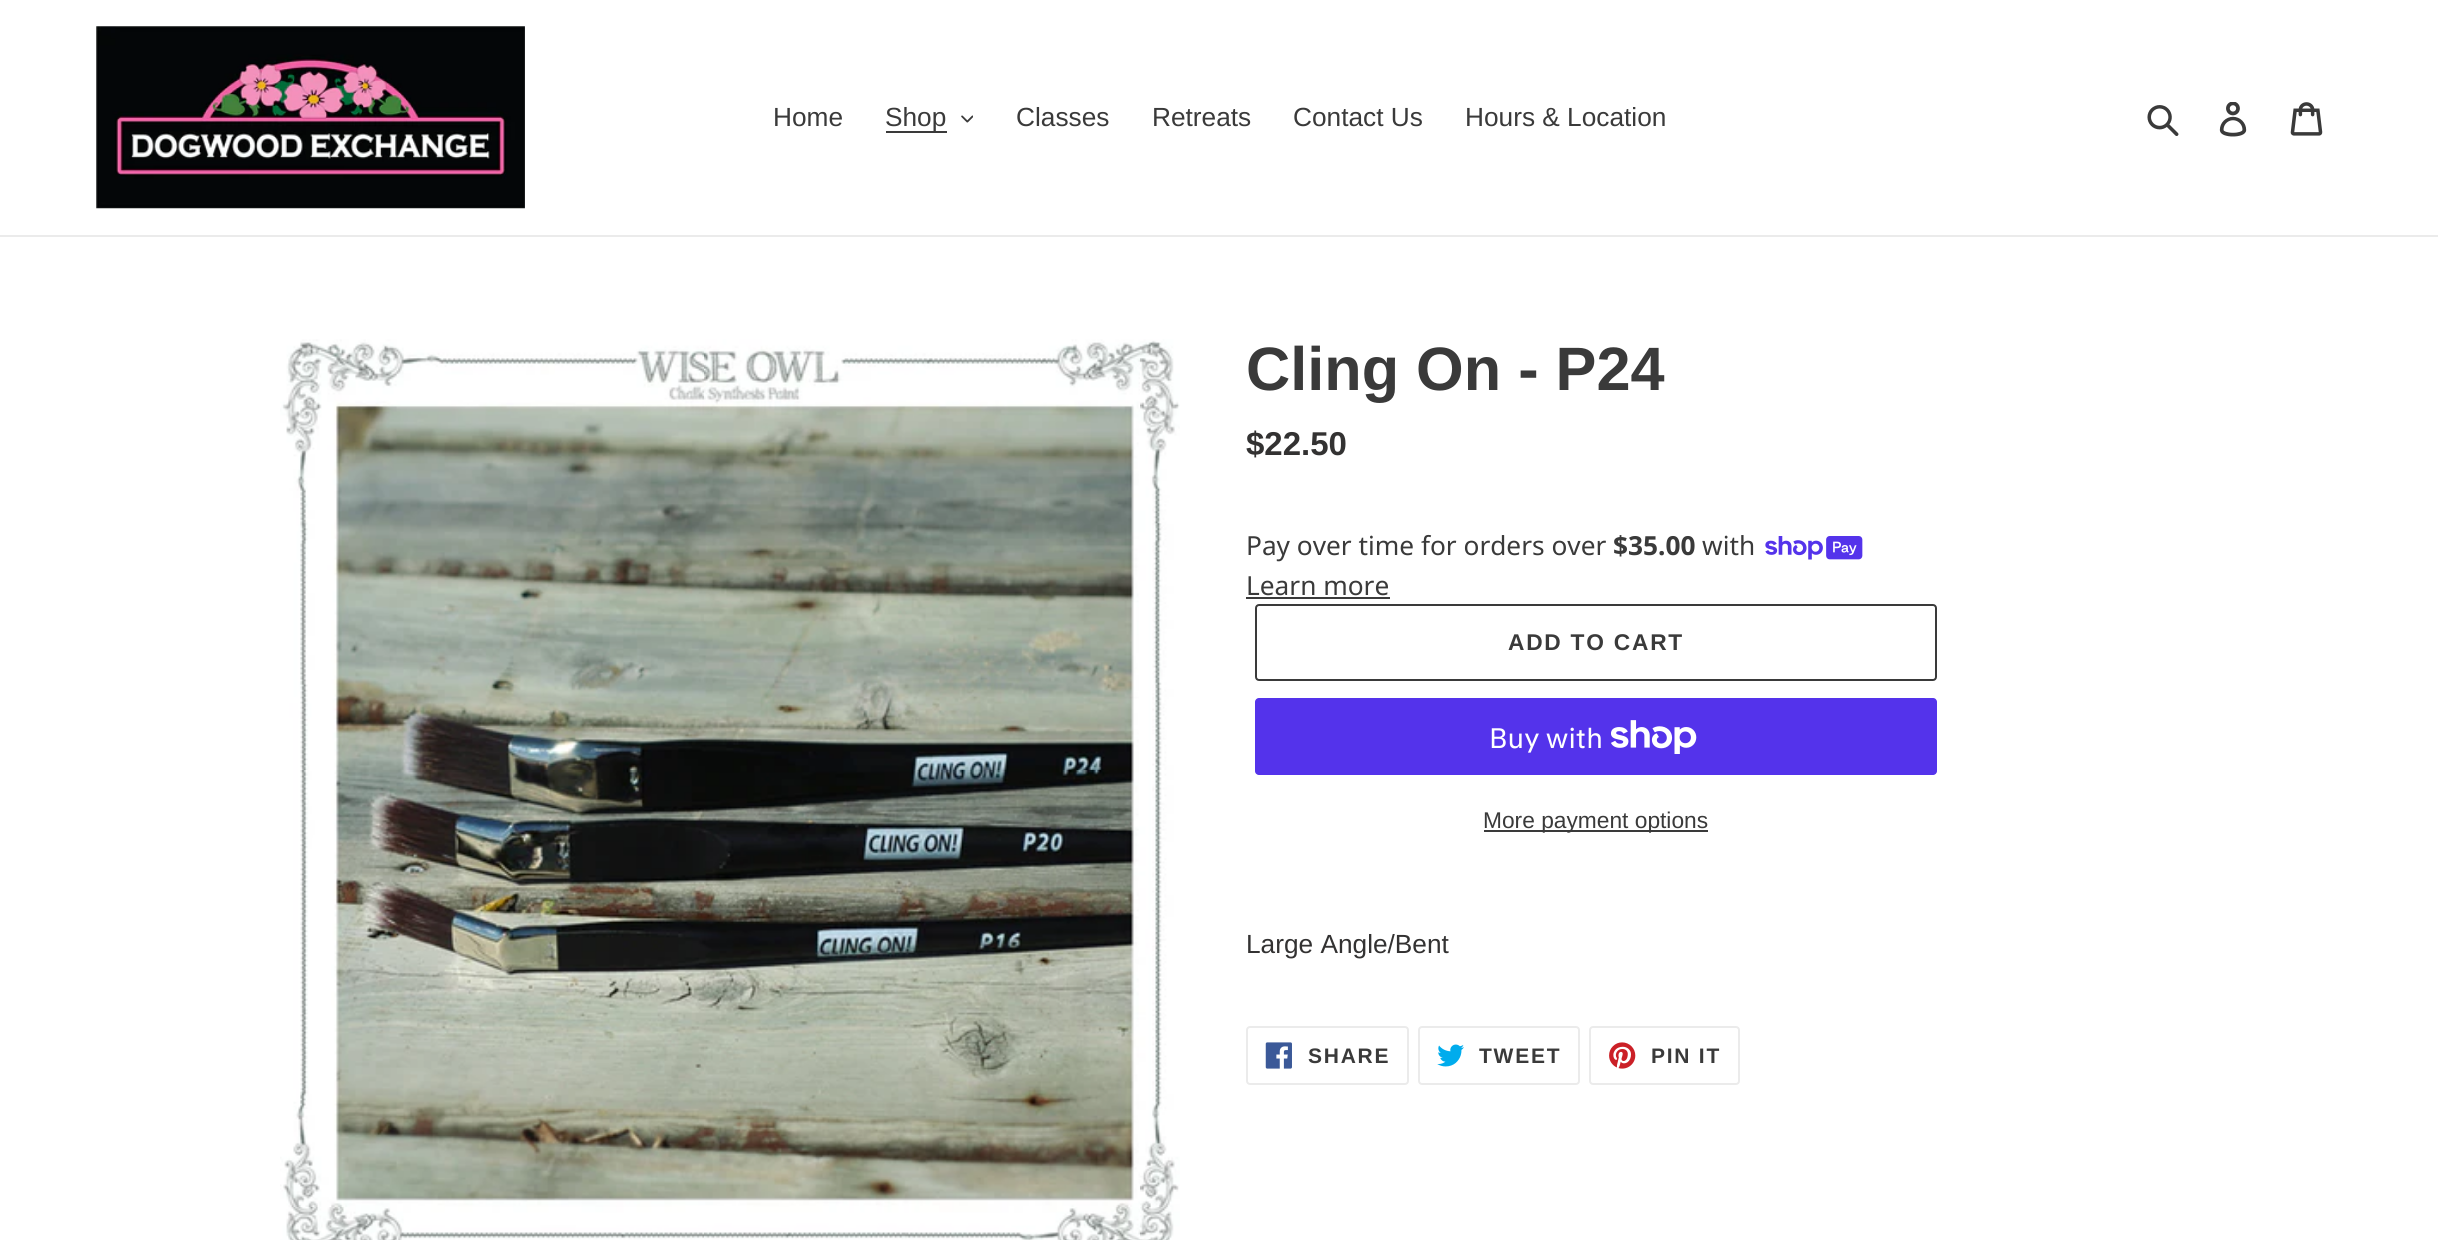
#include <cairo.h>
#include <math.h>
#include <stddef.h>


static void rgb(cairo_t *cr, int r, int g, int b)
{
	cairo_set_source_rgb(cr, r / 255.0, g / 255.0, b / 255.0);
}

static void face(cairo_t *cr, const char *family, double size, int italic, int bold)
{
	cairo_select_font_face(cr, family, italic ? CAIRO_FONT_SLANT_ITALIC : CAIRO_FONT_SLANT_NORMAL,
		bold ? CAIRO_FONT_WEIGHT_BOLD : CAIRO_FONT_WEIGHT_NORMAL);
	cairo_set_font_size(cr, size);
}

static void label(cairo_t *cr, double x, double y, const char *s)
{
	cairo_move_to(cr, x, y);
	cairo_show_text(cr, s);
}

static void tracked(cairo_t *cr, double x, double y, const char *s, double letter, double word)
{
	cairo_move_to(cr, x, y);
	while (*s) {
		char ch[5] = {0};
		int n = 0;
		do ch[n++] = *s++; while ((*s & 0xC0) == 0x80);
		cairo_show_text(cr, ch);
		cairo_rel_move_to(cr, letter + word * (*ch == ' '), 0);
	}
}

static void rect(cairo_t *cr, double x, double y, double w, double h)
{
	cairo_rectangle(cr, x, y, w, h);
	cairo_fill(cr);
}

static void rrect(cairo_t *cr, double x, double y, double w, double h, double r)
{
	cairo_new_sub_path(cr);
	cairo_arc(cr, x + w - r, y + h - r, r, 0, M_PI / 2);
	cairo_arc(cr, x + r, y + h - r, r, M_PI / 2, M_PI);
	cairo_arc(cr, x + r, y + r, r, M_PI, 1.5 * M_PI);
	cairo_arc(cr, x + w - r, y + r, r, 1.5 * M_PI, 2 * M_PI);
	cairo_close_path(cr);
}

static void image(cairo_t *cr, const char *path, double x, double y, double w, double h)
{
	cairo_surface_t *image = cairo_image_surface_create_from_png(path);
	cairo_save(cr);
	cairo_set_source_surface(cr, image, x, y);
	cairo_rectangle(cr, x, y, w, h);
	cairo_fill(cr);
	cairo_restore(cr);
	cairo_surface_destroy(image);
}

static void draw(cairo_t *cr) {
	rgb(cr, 255, 255, 255);
	cairo_paint(cr);
	rgb(cr, 235, 235, 235);
	rect(cr, 0, 235, 2438, 2);
	image(cr, "image0.png", 96, 26, 429, 183);
	face(cr, "Liberation Sans", 26.25, 0, 0);
	rgb(cr, 58, 58, 58);
	label(cr, 773, 126, "Home");
	rect(cr, 886, 131, 61, 2);
	label(cr, 885, 126, "Shop");
	image(cr, "image1.png", 961, 115, 12, 8);
	label(cr, 1016, 126, "Classes");
	label(cr, 1152, 126, "Retreats");
	label(cr, 1293, 126, "Contact Us");
	label(cr, 1465, 126, "Hours & Location");
	image(cr, "image2.png", 2147, 105, 32, 31);
	image(cr, "image3.png", 2219, 102, 28, 35);
	image(cr, "image4.png", 2290, 102, 33, 34);
	image(cr, "image5.png", 280, 339, 900, 901);
	face(cr, "Liberation Sans", 61.25, 0, 1);
	label(cr, 1246, 390, "Cling On - P24");
	face(cr, "Liberation Sans", 33, 0, 1);
	rgb(cr, 51, 50, 50);
	label(cr, 1246, 455, "$22.50");
	face(cr, "Noto Sans", 26.25, 0, 0);
	rgb(cr, 58, 58, 58);
	label(cr, 1246, 555, "Pay over time for orders over");
	face(cr, "Noto Sans", 26.25, 0, 1);
	label(cr, 1613, 555, "$35.00");
	face(cr, "Noto Sans", 26.25, 0, 0);
	label(cr, 1702, 555, "with");
	image(cr, "image6.png", 1765, 536, 98, 24);
	label(cr, 1246, 595, "Learn more");
	rect(cr, 1246, 597, 144, 2);
	rrect(cr, 1256, 605, 680, 75, 3);
	cairo_stroke(cr);
	face(cr, "Liberation Sans", 22.75, 0, 1);
	tracked(cr, 1508, 650, "ADD TO CART", 1.75, 0);
	rgb(cr, 84, 51, 235);
	rrect(cr, 1255, 698, 682, 77, 4);
	cairo_fill(cr);
	face(cr, "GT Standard", 28, 0, 0);
	rgb(cr, 255, 255, 255);
	label(cr, 1489, 748, "Buy with");
	image(cr, "image7.png", 1611, 720, 86, 34);
	rgb(cr, 58, 58, 58);
	rect(cr, 1484, 830, 224, 2);
	face(cr, "Liberation Sans", 22.75, 0, 0);
	label(cr, 1483, 828, "More payment options");
	face(cr, "Liberation Sans", 26.25, 0, 0);
	rgb(cr, 51, 50, 50);
	label(cr, 1246, 953, "Large Angle/Bent");
	rrect(cr, 1247, 1027, 161, 57, 3);
	rgb(cr, 235, 235, 235);
	cairo_stroke(cr);
	image(cr, "image8.png", 1265, 1042, 27, 27);
	face(cr, "Liberation Sans", 21, 0, 1);
	rgb(cr, 58, 58, 58);
	tracked(cr, 1308, 1063, "SHARE", 1.75, 0);
	rrect(cr, 1419, 1027, 160, 57, 3);
	rgb(cr, 235, 235, 235);
	cairo_stroke(cr);
	image(cr, "image9.png", 1437, 1044, 27, 23);
	rgb(cr, 58, 58, 58);
	tracked(cr, 1479, 1063, "TWEET", 1.75, 0);
	rrect(cr, 1590, 1027, 149, 57, 3);
	rgb(cr, 235, 235, 235);
	cairo_stroke(cr);
	image(cr, "image10.png", 1609, 1042, 27, 27);
	rgb(cr, 58, 58, 58);
	tracked(cr, 1651, 1063, "PIN IT", 1.75, 0);
}

int main(void) {
	cairo_surface_t *surface = cairo_image_surface_create(CAIRO_FORMAT_RGB24, 2438, 1240);
	cairo_t *cr = cairo_create(surface);
	cairo_font_options_t *options = cairo_font_options_create();
	cairo_font_options_set_hint_metrics(options, CAIRO_HINT_METRICS_OFF);
	cairo_font_options_set_hint_style(options, CAIRO_HINT_STYLE_NONE);
	cairo_set_font_options(cr, options);
	cairo_set_miter_limit(cr, 4);
	draw(cr);
	cairo_surface_write_to_png(surface, "render.png");
	cairo_font_options_destroy(options);
	cairo_destroy(cr);
	cairo_surface_destroy(surface);
	return 0;
}
